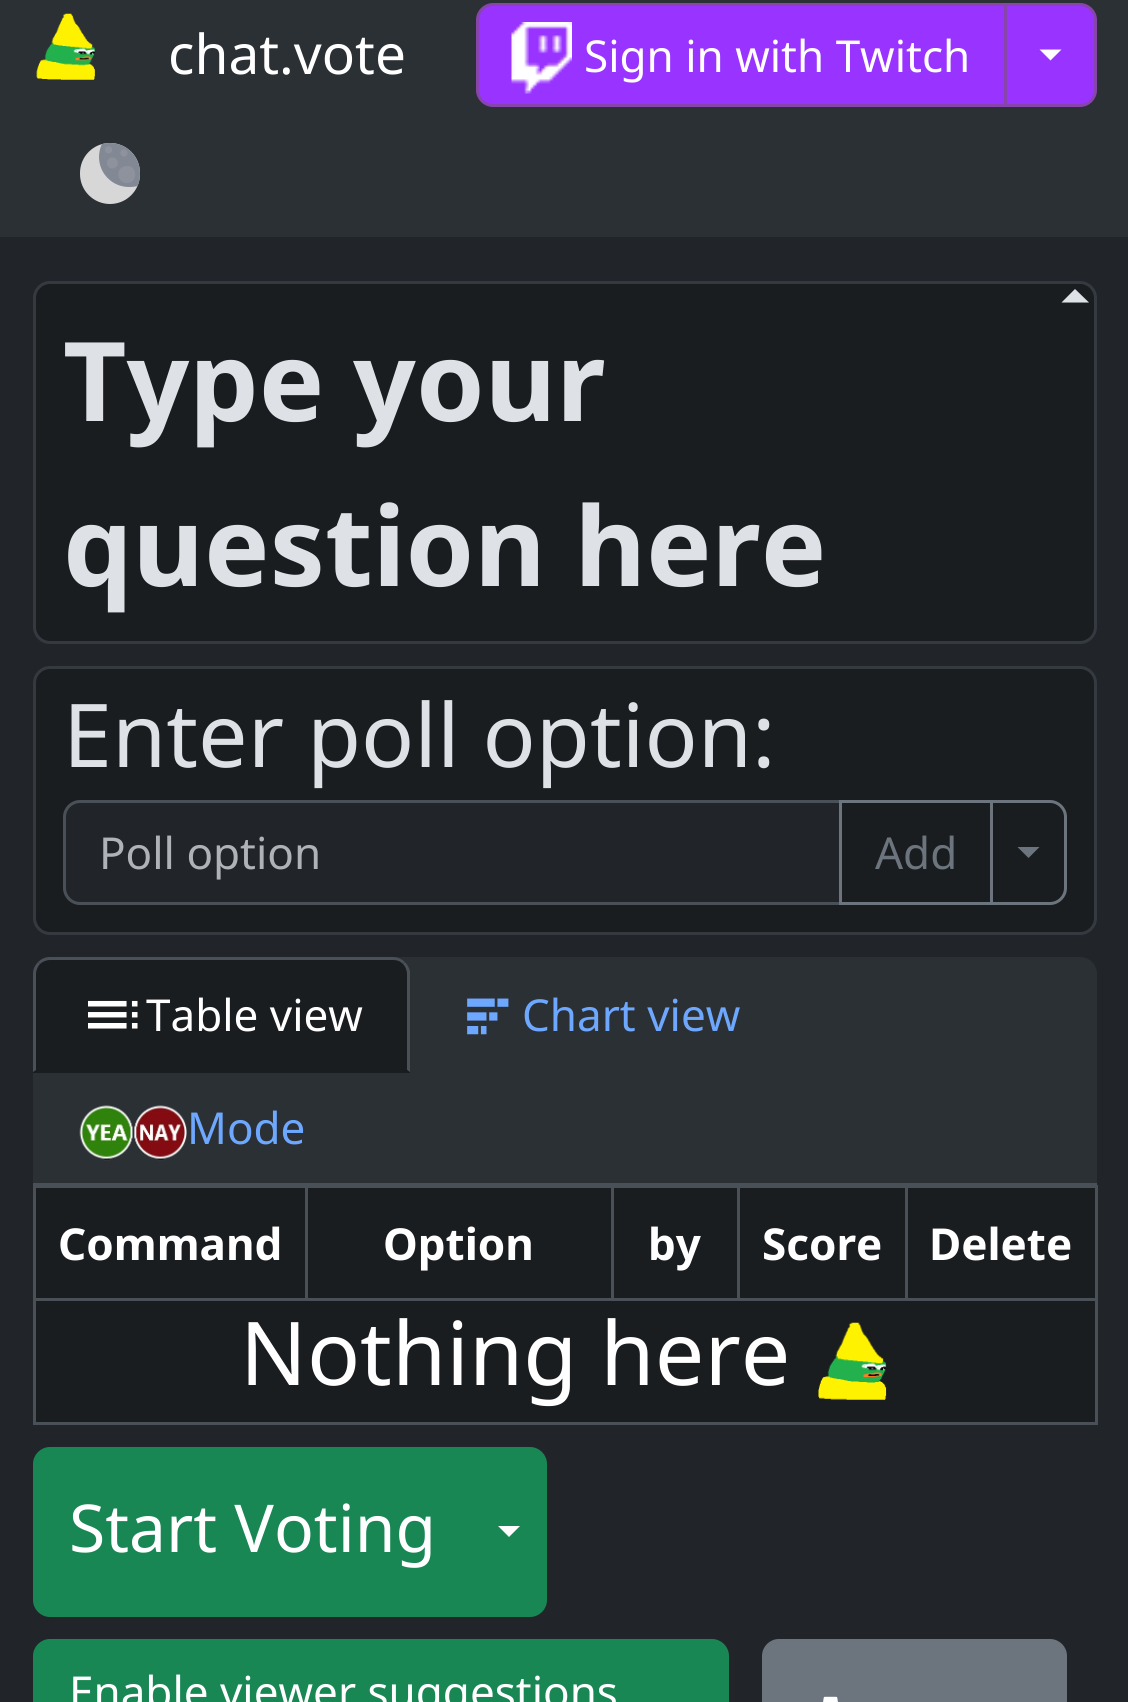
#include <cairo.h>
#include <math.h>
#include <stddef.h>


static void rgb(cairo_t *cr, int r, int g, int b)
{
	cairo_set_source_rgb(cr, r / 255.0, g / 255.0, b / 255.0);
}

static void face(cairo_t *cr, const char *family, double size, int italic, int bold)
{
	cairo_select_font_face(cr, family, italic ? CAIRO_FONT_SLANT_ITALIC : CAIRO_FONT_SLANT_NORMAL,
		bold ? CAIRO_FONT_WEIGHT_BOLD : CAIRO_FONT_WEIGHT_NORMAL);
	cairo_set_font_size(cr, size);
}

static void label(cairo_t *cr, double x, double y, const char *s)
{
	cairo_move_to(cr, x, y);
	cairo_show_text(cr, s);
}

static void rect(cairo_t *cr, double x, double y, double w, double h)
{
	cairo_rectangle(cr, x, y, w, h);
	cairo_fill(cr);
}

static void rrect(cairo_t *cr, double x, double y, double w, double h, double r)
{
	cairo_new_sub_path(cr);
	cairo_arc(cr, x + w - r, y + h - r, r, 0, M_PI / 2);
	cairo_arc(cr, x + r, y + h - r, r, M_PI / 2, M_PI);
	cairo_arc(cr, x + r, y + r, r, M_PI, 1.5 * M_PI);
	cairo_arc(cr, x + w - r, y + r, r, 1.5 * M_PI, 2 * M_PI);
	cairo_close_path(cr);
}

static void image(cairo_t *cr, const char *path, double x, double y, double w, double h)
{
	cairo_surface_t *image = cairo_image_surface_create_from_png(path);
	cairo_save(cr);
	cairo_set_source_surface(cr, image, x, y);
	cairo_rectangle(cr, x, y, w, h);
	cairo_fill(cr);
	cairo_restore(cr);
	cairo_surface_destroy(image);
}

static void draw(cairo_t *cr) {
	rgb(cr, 33, 37, 41);
	cairo_paint(cr);
	rgb(cr, 43, 48, 53);
	rect(cr, 0, 0, 1128, 237);
	image(cr, "image0.png", 36, 13, 59, 67);
	face(cr, "Noto Sans", 55, 0, 0);
	rgb(cr, 255, 255, 255);
	label(cr, 168, 74, "chat.vote");
	rgb(cr, 153, 51, 255);
	cairo_new_path(cr);
	cairo_move_to(cr, 493, 4.5);
	cairo_line_to(cr, 1005.5, 4.5);
	cairo_line_to(cr, 1005.5, 105.5);
	cairo_line_to(cr, 493, 105.5);
	cairo_curve_to(cr, 484.5, 105.5, 477.5, 98.5, 477.5, 90);
	cairo_line_to(cr, 477.5, 20);
	cairo_curve_to(cr, 477.5, 11.5, 484.5, 4.5, 493, 4.5);
	cairo_close_path(cr);
	cairo_fill_preserve(cr);
	rgb(cr, 135, 68, 170);
	cairo_set_line_width(cr, 3);
	cairo_stroke(cr);
	image(cr, "image1.png", 511, 22, 61, 72);
	face(cr, "Noto Sans", 44, 0, 0);
	rgb(cr, 255, 255, 255);
	label(cr, 584, 72, "Sign in with Twitch");
	rgb(cr, 153, 51, 255);
	cairo_new_path(cr);
	cairo_move_to(cr, 1005.5, 4.5);
	cairo_line_to(cr, 1080, 4.5);
	cairo_curve_to(cr, 1088.5, 4.5, 1095.5, 11.5, 1095.5, 20);
	cairo_line_to(cr, 1095.5, 90);
	cairo_curve_to(cr, 1095.5, 98.5, 1088.5, 105.5, 1080, 105.5);
	cairo_line_to(cr, 1005.5, 105.5);
	cairo_close_path(cr);
	cairo_fill_preserve(cr);
	rgb(cr, 135, 68, 170);
	cairo_stroke(cr);
	rgb(cr, 255, 255, 255);
	cairo_new_path(cr);
	cairo_move_to(cr, 1039.5, 49.5);
	cairo_line_to(cr, 1061.5, 49.5);
	cairo_line_to(cr, 1050.5, 60.5);
	cairo_close_path(cr);
	cairo_fill(cr);
	rgb(cr, 215, 215, 216);
	rrect(cr, 80, 143, 60, 61, 30);
	cairo_fill(cr);
	cairo_save(cr);
	rrect(cr, 80, 143, 60, 61, 30);
	cairo_clip(cr);
	rgb(cr, 130, 136, 148);
	rrect(cr, 99, 127, 61, 60, 30);
	cairo_fill(cr);
	cairo_restore(cr);
	image(cr, "image2.png", 105, 146, 7, 8);
	image(cr, "image3.png", 120, 149, 8, 8);
	image(cr, "image4.png", 107, 157, 11, 12);
	rgb(cr, 141, 146, 157);
	cairo_new_path(cr);
	cairo_move_to(cr, 127, 183);
	cairo_curve_to(cr, 115.5, 183, 115.5, 166, 127, 166);
	cairo_curve_to(cr, 138, 166, 138, 183, 127, 183);
	cairo_close_path(cr);
	cairo_fill(cr);
	rgb(cr, 26, 29, 32);
	rrect(cr, 34.5, 282.5, 1061, 360, 15.5);
	cairo_fill_preserve(cr);
	rgb(cr, 52, 58, 64);
	cairo_stroke(cr);
	rgb(cr, 222, 226, 230);
	cairo_new_path(cr);
	cairo_move_to(cr, 1061.5, 302.5);
	cairo_line_to(cr, 1075, 289);
	cairo_line_to(cr, 1089, 302.5);
	cairo_close_path(cr);
	cairo_fill(cr);
	face(cr, "Noto Sans", 110, 0, 1);
	label(cr, 63, 421, "Type your");
	label(cr, 63, 586, "question here");
	rgb(cr, 26, 29, 32);
	rrect(cr, 34.5, 667.5, 1061, 266, 15.5);
	cairo_fill_preserve(cr);
	rgb(cr, 52, 58, 64);
	cairo_stroke(cr);
	face(cr, "Noto Sans", 88, 0, 0);
	rgb(cr, 222, 226, 230);
	label(cr, 63, 767, "Enter poll option:");
	rgb(cr, 33, 37, 41);
	cairo_new_path(cr);
	cairo_move_to(cr, 80, 801.5);
	cairo_line_to(cr, 840.5, 801.5);
	cairo_line_to(cr, 840.5, 903.5);
	cairo_line_to(cr, 80, 903.5);
	cairo_curve_to(cr, 71.5, 903.5, 64.5, 896.5, 64.5, 888);
	cairo_line_to(cr, 64.5, 817);
	cairo_curve_to(cr, 64.5, 808.5, 71.5, 801.5, 80, 801.5);
	cairo_close_path(cr);
	cairo_fill_preserve(cr);
	rgb(cr, 73, 80, 87);
	cairo_stroke(cr);
	face(cr, "Noto Sans", 44, 0, 0);
	rgb(cr, 175, 179, 183);
	label(cr, 99, 869, "Poll option");
	cairo_rectangle(cr, 840.5, 801.5, 151, 102);
	rgb(cr, 108, 117, 125);
	cairo_stroke(cr);
	label(cr, 875, 869, "Add");
	cairo_new_path(cr);
	cairo_move_to(cr, 991.5, 801.5);
	cairo_line_to(cr, 1050, 801.5);
	cairo_curve_to(cr, 1058.5, 801.5, 1065.5, 808.5, 1065.5, 817);
	cairo_line_to(cr, 1065.5, 888);
	cairo_curve_to(cr, 1065.5, 896.5, 1058.5, 903.5, 1050, 903.5);
	cairo_line_to(cr, 991.5, 903.5);
	cairo_close_path(cr);
	cairo_stroke(cr);
	cairo_new_path(cr);
	cairo_move_to(cr, 1017.5, 847);
	cairo_line_to(cr, 1039.5, 847);
	cairo_line_to(cr, 1028.5, 858);
	cairo_close_path(cr);
	cairo_fill(cr);
	rgb(cr, 43, 48, 53);
	cairo_new_path(cr);
	cairo_move_to(cr, 50, 957);
	cairo_line_to(cr, 1080, 957);
	cairo_curve_to(cr, 1089.5, 957, 1097, 964.5, 1097, 974);
	cairo_line_to(cr, 1097, 1185);
	cairo_line_to(cr, 33, 1185);
	cairo_line_to(cr, 33, 974);
	cairo_curve_to(cr, 33, 964.5, 40.5, 957, 50, 957);
	cairo_close_path(cr);
	cairo_fill(cr);
	rgb(cr, 73, 80, 87);
	rect(cr, 33, 1183, 1064, 5);
	rgb(cr, 26, 29, 32);
	cairo_new_path(cr);
	cairo_move_to(cr, 50, 957);
	cairo_line_to(cr, 393, 957);
	cairo_curve_to(cr, 402.5, 957, 410, 964.5, 410, 974);
	cairo_line_to(cr, 410, 1073);
	cairo_line_to(cr, 33, 1073);
	cairo_line_to(cr, 33, 974);
	cairo_curve_to(cr, 33, 964.5, 40.5, 957, 50, 957);
	cairo_close_path(cr);
	cairo_fill(cr);
	rgb(cr, 73, 80, 87);
	cairo_new_path(cr);
	cairo_move_to(cr, 50, 957);
	cairo_curve_to(cr, 45, 957, 41, 959, 38, 962);
	cairo_line_to(cr, 40, 964);
	cairo_curve_to(cr, 42, 962, 46, 960, 50, 960);
	cairo_line_to(cr, 393, 960);
	cairo_curve_to(cr, 397, 960, 400, 961, 403, 964);
	cairo_line_to(cr, 405, 962);
	cairo_curve_to(cr, 402, 959, 398, 957, 393, 957);
	cairo_close_path(cr);
	cairo_fill(cr);
	cairo_new_path(cr);
	cairo_move_to(cr, 410, 1072);
	cairo_line_to(cr, 407, 1070);
	cairo_line_to(cr, 407, 974);
	cairo_curve_to(cr, 407, 970, 405, 966, 403, 964);
	cairo_line_to(cr, 405, 962);
	cairo_curve_to(cr, 407, 964, 409, 967, 410, 971);
	cairo_close_path(cr);
	cairo_fill(cr);
	rgb(cr, 26, 29, 32);
	cairo_new_path(cr);
	cairo_move_to(cr, 409, 1072);
	cairo_line_to(cr, 34, 1072);
	cairo_line_to(cr, 36, 1070);
	cairo_line_to(cr, 407, 1070);
	cairo_close_path(cr);
	cairo_fill(cr);
	rgb(cr, 73, 80, 87);
	cairo_new_path(cr);
	cairo_move_to(cr, 33, 974);
	cairo_line_to(cr, 33, 1072);
	cairo_line_to(cr, 36, 1070);
	cairo_line_to(cr, 36, 974);
	cairo_curve_to(cr, 36, 970, 38, 966, 40, 964);
	cairo_line_to(cr, 38, 962);
	cairo_curve_to(cr, 35, 965, 33, 969, 33, 974);
	cairo_close_path(cr);
	cairo_fill(cr);
	image(cr, "image5.png", 88, 1000, 50, 29);
	rgb(cr, 255, 255, 255);
	label(cr, 146, 1031, "Table view");
	image(cr, "image6.png", 467, 998, 42, 37);
	rgb(cr, 110, 168, 254);
	label(cr, 522, 1031, "Chart view");
	image(cr, "image7.png", 79, 1105, 108, 56);
	label(cr, 187, 1144, "Mode");
	rgb(cr, 26, 29, 32);
	rect(cr, 36, 1188, 1059, 234);
	face(cr, "Noto Sans", 44, 0, 1);
	rgb(cr, 255, 255, 255);
	label(cr, 58, 1260, "Command");
	rgb(cr, 73, 80, 87);
	rect(cr, 33, 1298, 1064, 3);
	rect(cr, 305, 1185, 3, 116);
	rgb(cr, 255, 255, 255);
	label(cr, 383, 1260, "Option");
	rgb(cr, 73, 80, 87);
	rect(cr, 611, 1185, 3, 116);
	rgb(cr, 255, 255, 255);
	label(cr, 648, 1260, "by");
	rgb(cr, 73, 80, 87);
	rect(cr, 737, 1185, 3, 116);
	rgb(cr, 255, 255, 255);
	label(cr, 762, 1260, "Score");
	rgb(cr, 73, 80, 87);
	rect(cr, 905, 1185, 3, 116);
	rgb(cr, 255, 255, 255);
	label(cr, 929, 1260, "Delete");
	rgb(cr, 73, 80, 87);
	rect(cr, 33, 1422, 1064, 3);
	rect(cr, 1095, 1185, 3, 240);
	rect(cr, 33, 1185, 3, 240);
	face(cr, "Noto Sans", 88, 0, 0);
	rgb(cr, 255, 255, 255);
	label(cr, 240, 1385, "Nothing here");
	image(cr, "image8.png", 818, 1322, 69, 78);
	rgb(cr, 25, 135, 84);
	cairo_new_path(cr);
	cairo_move_to(cr, 50, 1448.5);
	cairo_line_to(cr, 471.5, 1448.5);
	cairo_line_to(cr, 471.5, 1615.5);
	cairo_line_to(cr, 50, 1615.5);
	cairo_curve_to(cr, 41.5, 1615.5, 34.5, 1608.5, 34.5, 1600);
	cairo_line_to(cr, 34.5, 1464);
	cairo_curve_to(cr, 34.5, 1455.5, 41.5, 1448.5, 50, 1448.5);
	cairo_close_path(cr);
	cairo_fill_preserve(cr);
	cairo_stroke(cr);
	face(cr, "Noto Sans", 66, 0, 0);
	rgb(cr, 255, 255, 255);
	label(cr, 69, 1552, "Start Voting");
	rgb(cr, 25, 135, 84);
	cairo_new_path(cr);
	cairo_move_to(cr, 471.5, 1448.5);
	cairo_line_to(cr, 530, 1448.5);
	cairo_curve_to(cr, 538.5, 1448.5, 545.5, 1455.5, 545.5, 1464);
	cairo_line_to(cr, 545.5, 1600);
	cairo_curve_to(cr, 545.5, 1608.5, 538.5, 1615.5, 530, 1615.5);
	cairo_line_to(cr, 471.5, 1615.5);
	cairo_close_path(cr);
	cairo_fill_preserve(cr);
	cairo_stroke(cr);
	rgb(cr, 255, 255, 255);
	cairo_new_path(cr);
	cairo_move_to(cr, 498, 1526);
	cairo_line_to(cr, 520, 1526);
	cairo_line_to(cr, 509, 1537);
	cairo_close_path(cr);
	cairo_fill(cr);
	rgb(cr, 25, 135, 84);
	cairo_new_path(cr);
	cairo_move_to(cr, 50, 1640.5);
	cairo_line_to(cr, 653.5, 1640.5);
	cairo_line_to(cr, 653.5, 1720.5);
	cairo_line_to(cr, 50, 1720.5);
	cairo_curve_to(cr, 41.5, 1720.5, 34.5, 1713.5, 34.5, 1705);
	cairo_line_to(cr, 34.5, 1656);
	cairo_curve_to(cr, 34.5, 1647.5, 41.5, 1640.5, 50, 1640.5);
	cairo_close_path(cr);
	cairo_fill_preserve(cr);
	cairo_stroke(cr);
	face(cr, "Noto Sans", 44, 0, 0);
	rgb(cr, 255, 255, 255);
	label(cr, 69, 1708, "Enable viewer suggestions");
	rgb(cr, 25, 135, 84);
	cairo_new_path(cr);
	cairo_move_to(cr, 653.5, 1640.5);
	cairo_line_to(cr, 712, 1640.5);
	cairo_curve_to(cr, 720.5, 1640.5, 727.5, 1647.5, 727.5, 1656);
	cairo_line_to(cr, 727.5, 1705);
	cairo_curve_to(cr, 727.5, 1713.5, 720.5, 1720.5, 712, 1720.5);
	cairo_line_to(cr, 653.5, 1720.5);
	cairo_close_path(cr);
	cairo_fill_preserve(cr);
	cairo_stroke(cr);
	rgb(cr, 108, 117, 125);
	rrect(cr, 763.5, 1640.5, 302, 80, 15.5);
	cairo_fill_preserve(cr);
	cairo_stroke(cr);
	image(cr, "image9.png", 823, 1696, 15, 6);
}

int main(void) {
	cairo_surface_t *surface = cairo_image_surface_create(CAIRO_FORMAT_RGB24, 1128, 1702);
	cairo_t *cr = cairo_create(surface);
	cairo_font_options_t *options = cairo_font_options_create();
	cairo_font_options_set_hint_metrics(options, CAIRO_HINT_METRICS_OFF);
	cairo_font_options_set_hint_style(options, CAIRO_HINT_STYLE_NONE);
	cairo_set_font_options(cr, options);
	cairo_set_miter_limit(cr, 4);
	draw(cr);
	cairo_surface_write_to_png(surface, "render.png");
	cairo_font_options_destroy(options);
	cairo_destroy(cr);
	cairo_surface_destroy(surface);
	return 0;
}
